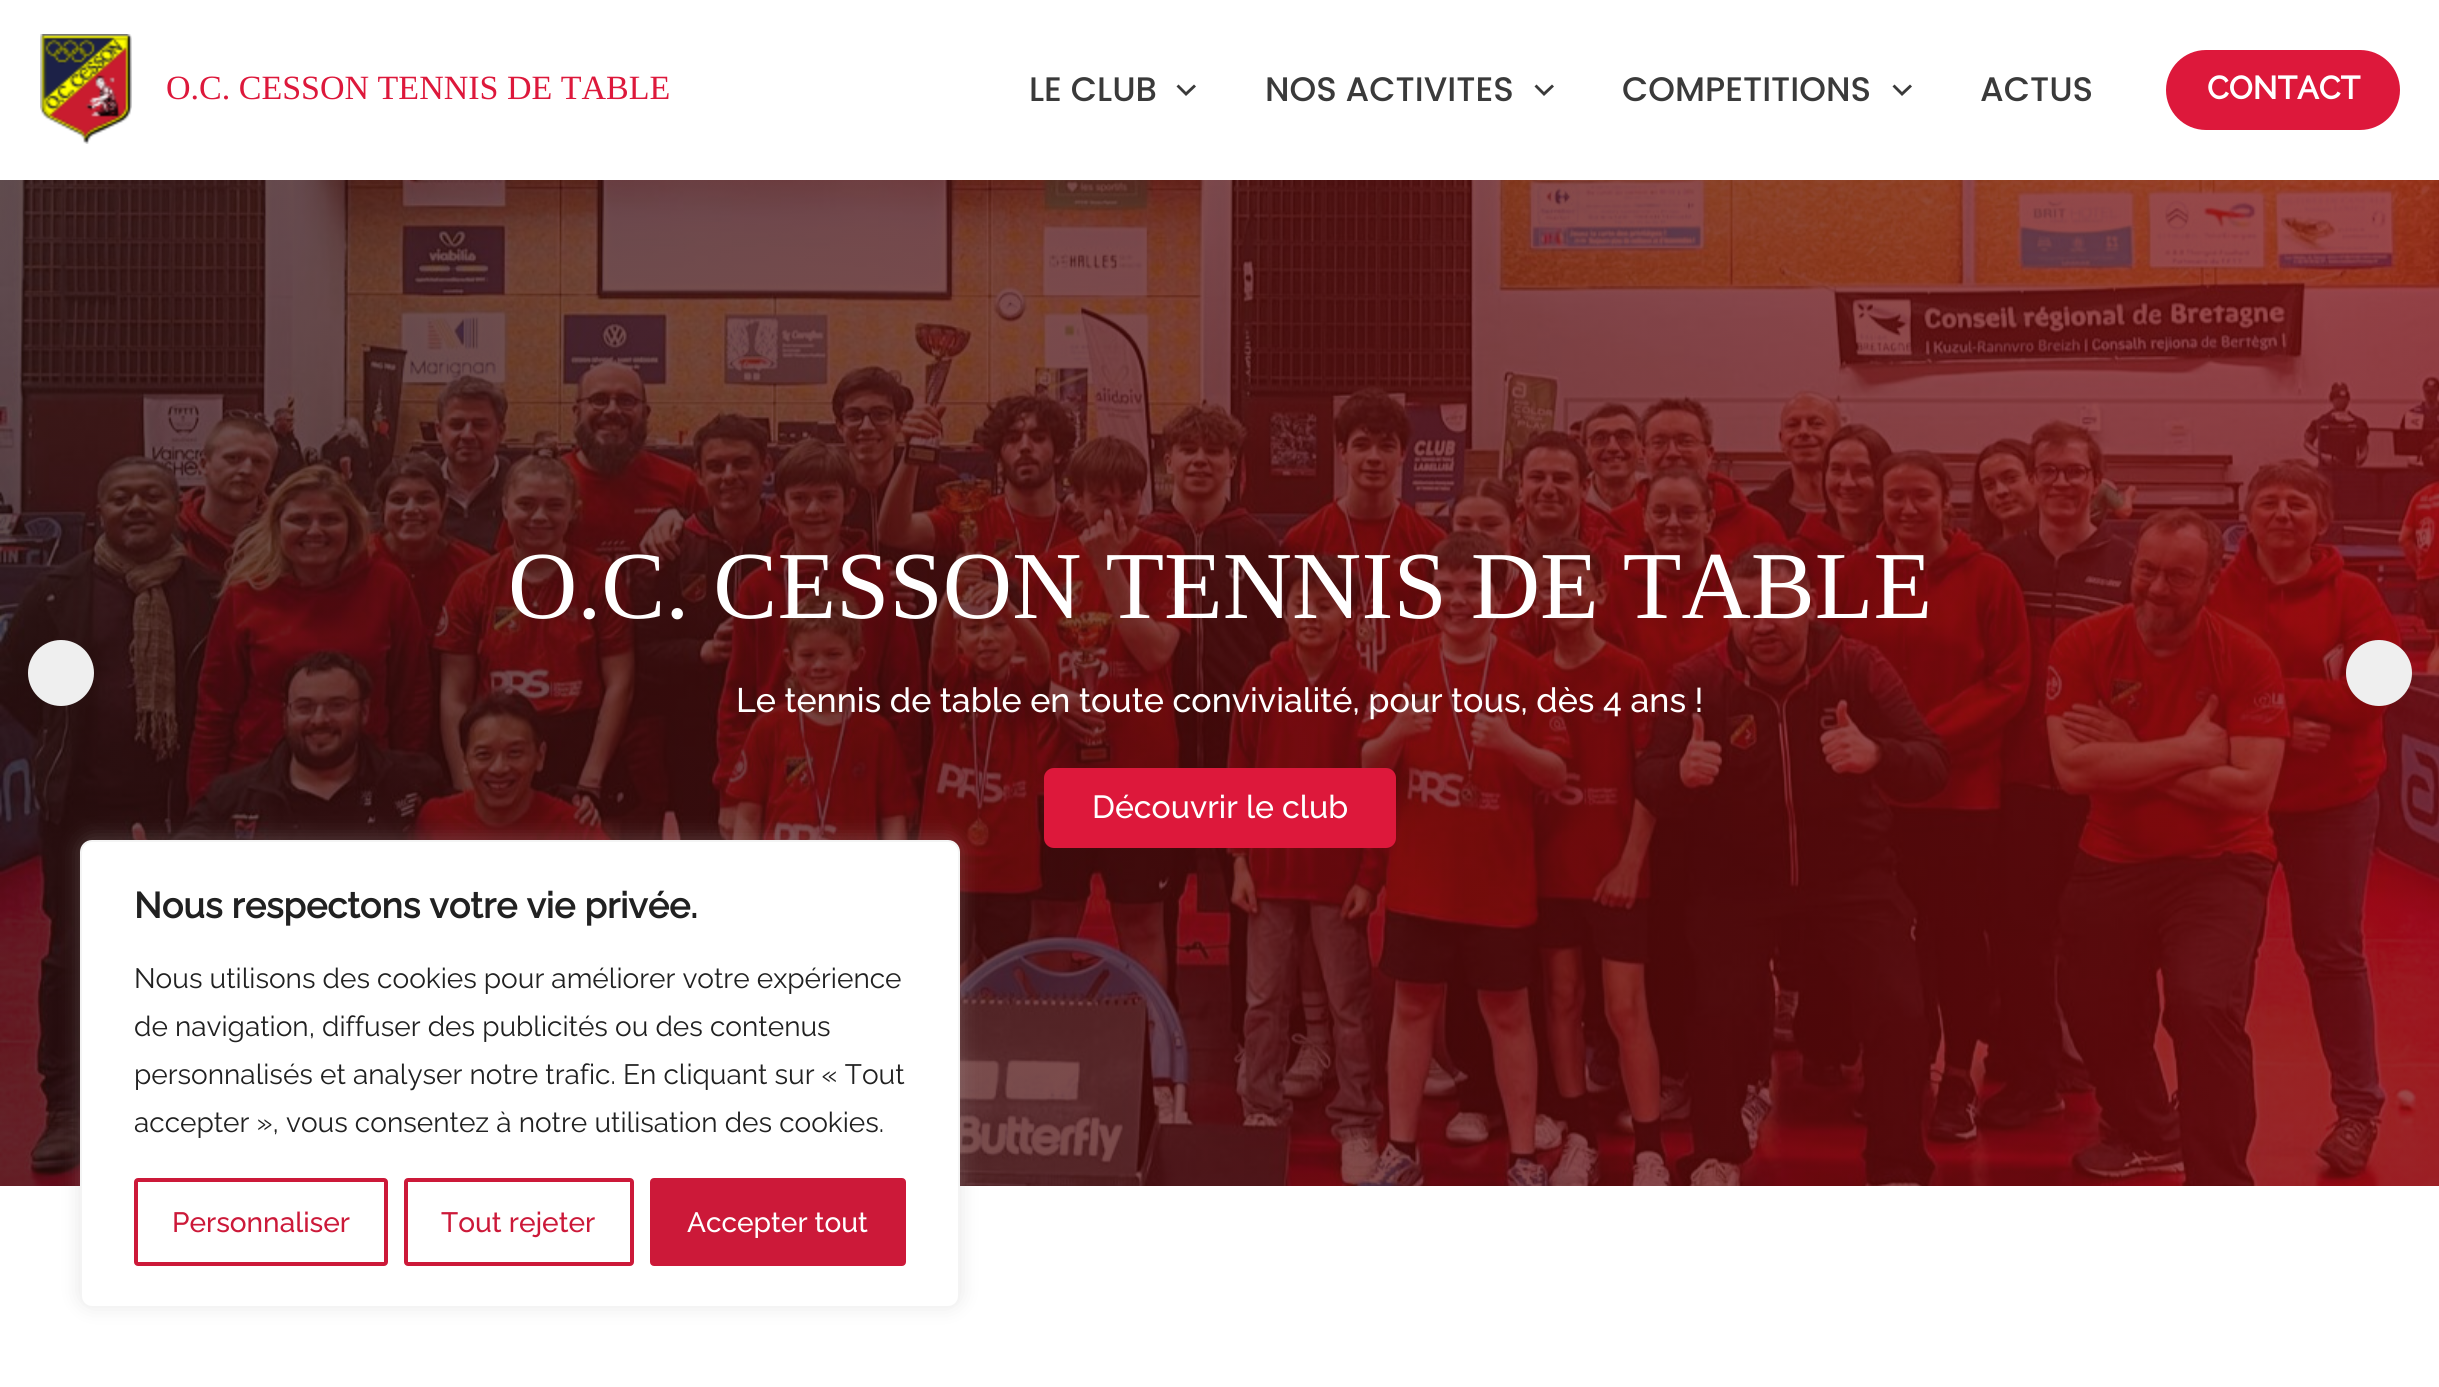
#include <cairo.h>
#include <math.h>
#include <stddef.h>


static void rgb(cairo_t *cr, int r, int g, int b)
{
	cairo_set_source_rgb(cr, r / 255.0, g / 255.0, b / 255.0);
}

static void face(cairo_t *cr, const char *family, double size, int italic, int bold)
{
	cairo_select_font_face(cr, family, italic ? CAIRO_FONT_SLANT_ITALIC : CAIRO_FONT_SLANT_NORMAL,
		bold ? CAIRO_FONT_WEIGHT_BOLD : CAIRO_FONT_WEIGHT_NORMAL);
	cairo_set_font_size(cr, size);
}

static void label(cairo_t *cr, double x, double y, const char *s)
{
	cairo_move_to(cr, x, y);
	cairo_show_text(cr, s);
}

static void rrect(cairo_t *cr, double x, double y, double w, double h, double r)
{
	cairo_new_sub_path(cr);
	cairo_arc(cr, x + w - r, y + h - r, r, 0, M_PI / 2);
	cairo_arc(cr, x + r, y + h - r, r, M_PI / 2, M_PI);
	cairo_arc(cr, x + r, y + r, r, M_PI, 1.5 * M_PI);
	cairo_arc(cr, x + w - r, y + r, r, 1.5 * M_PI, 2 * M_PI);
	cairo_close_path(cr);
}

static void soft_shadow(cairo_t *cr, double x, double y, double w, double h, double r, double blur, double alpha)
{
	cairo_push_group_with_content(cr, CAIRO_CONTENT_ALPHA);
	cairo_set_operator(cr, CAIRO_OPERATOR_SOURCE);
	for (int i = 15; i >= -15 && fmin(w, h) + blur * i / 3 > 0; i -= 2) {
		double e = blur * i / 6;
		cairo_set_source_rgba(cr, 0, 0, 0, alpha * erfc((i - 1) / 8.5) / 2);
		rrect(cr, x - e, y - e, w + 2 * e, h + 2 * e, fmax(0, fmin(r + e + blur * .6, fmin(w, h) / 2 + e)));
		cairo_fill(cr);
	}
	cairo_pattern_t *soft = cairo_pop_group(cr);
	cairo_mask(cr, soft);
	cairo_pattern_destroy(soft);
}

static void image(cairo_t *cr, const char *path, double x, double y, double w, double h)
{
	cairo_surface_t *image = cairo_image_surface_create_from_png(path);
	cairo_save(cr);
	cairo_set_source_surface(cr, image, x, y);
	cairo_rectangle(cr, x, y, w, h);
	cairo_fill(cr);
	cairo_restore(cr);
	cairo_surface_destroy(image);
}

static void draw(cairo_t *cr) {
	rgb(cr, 255, 255, 255);
	cairo_paint(cr);
	image(cr, "image0.png", 40, 34, 92, 110);
	face(cr, "Liberation Serif", 34, 0, 0);
	rgb(cr, 221, 24, 59);
	label(cr, 166, 99, "O.C. CESSON TENNIS DE TABLE");
	face(cr, "Poppins Medium", 34, 0, 0);
	rgb(cr, 58, 58, 58);
	label(cr, 1029, 101, "LE CLUB");
	cairo_new_path(cr);
	cairo_move_to(cr, 1176.5, 86.5);
	cairo_line_to(cr, 1186, 96);
	cairo_line_to(cr, 1196, 86.5);
	cairo_line_to(cr, 1194, 84.5);
	cairo_line_to(cr, 1186, 92);
	cairo_line_to(cr, 1178.5, 84.5);
	cairo_close_path(cr);
	cairo_fill(cr);
	label(cr, 1265, 101, "NOS ACTIVITES");
	cairo_new_path(cr);
	cairo_move_to(cr, 1534.5, 86.5);
	cairo_line_to(cr, 1544, 96);
	cairo_line_to(cr, 1554, 86.5);
	cairo_line_to(cr, 1552, 84.5);
	cairo_line_to(cr, 1544, 92);
	cairo_line_to(cr, 1536.5, 84.5);
	cairo_close_path(cr);
	cairo_fill(cr);
	label(cr, 1622, 101, "COMPETITIONS");
	cairo_new_path(cr);
	cairo_move_to(cr, 1892.5, 86.5);
	cairo_line_to(cr, 1902, 96);
	cairo_line_to(cr, 1912, 86.5);
	cairo_line_to(cr, 1910, 84.5);
	cairo_line_to(cr, 1902, 92);
	cairo_line_to(cr, 1894.5, 84.5);
	cairo_close_path(cr);
	cairo_fill(cr);
	label(cr, 1980, 101, "ACTUS");
	rgb(cr, 221, 24, 59);
	rrect(cr, 2166, 50, 234, 80, 40);
	cairo_fill(cr);
	face(cr, "Raleway", 32, 0, 1);
	rgb(cr, 255, 255, 255);
	label(cr, 2207, 99, "CONTACT");
	image(cr, "image1.png", 0, 180, 2439, 1006);
	rgb(cr, 239, 239, 239);
	cairo_arc(cr, 61, 673, 33, 0, 2 * M_PI);
	cairo_fill(cr);
	face(cr, "Liberation Serif", 96, 0, 0);
	rgb(cr, 255, 255, 255);
	label(cr, 508, 618, "O.C. CESSON TENNIS DE TABLE");
	face(cr, "Raleway Medium", 34, 0, 0);
	label(cr, 736, 712, "Le tennis de table en toute convivialité, pour tous, dès 4 ans !");
	rgb(cr, 221, 24, 59);
	rrect(cr, 1044, 768, 352, 80, 10);
	cairo_fill(cr);
	face(cr, "Raleway Medium", 32, 0, 0);
	rgb(cr, 255, 255, 255);
	label(cr, 1092, 818, "Découvrir le club");
	rgb(cr, 239, 239, 239);
	cairo_new_path(cr);
	cairo_arc(cr, 2379, 673, 33, 0, 2 * M_PI);
	cairo_fill(cr);
	rgb(cr, 172, 171, 171);
	soft_shadow(cr, 80, 838, 880, 468, 12, 10, 0.3);
	rgb(cr, 255, 255, 255);
	rrect(cr, 81, 841, 878, 466, 11);
	cairo_fill_preserve(cr);
	rgb(cr, 244, 244, 244);
	cairo_stroke(cr);
	face(cr, "Raleway", 36, 0, 1);
	rgb(cr, 33, 33, 33);
	label(cr, 134, 918, "Nous respectons votre vie privée.");
	face(cr, "Raleway", 28, 0, 0);
	label(cr, 134, 988, "Nous utilisons des cookies pour améliorer votre expérience");
	label(cr, 134, 1036, "de navigation, diffuser des publicités ou des contenus");
	label(cr, 134, 1084, "personnalisés et analyser notre trafic. En cliquant sur « Tout");
	label(cr, 134, 1132, "accepter », vous consentez à notre utilisation des cookies.");
	rrect(cr, 136, 1180, 250, 84, 2);
	rgb(cr, 204, 25, 57);
	cairo_set_line_width(cr, 4);
	cairo_stroke(cr);
	face(cr, "Raleway Medium", 28, 0, 0);
	label(cr, 172, 1232, "Personnaliser");
	rrect(cr, 406, 1180, 226, 84, 2);
	cairo_stroke(cr);
	label(cr, 441, 1232, "Tout rejeter");
	rrect(cr, 652, 1180, 252, 84, 2);
	cairo_fill_preserve(cr);
	cairo_stroke(cr);
	rgb(cr, 255, 255, 255);
	label(cr, 687, 1232, "Accepter tout");
}

int main(void) {
	cairo_surface_t *surface = cairo_image_surface_create(CAIRO_FORMAT_RGB24, 2439, 1387);
	cairo_t *cr = cairo_create(surface);
	cairo_font_options_t *options = cairo_font_options_create();
	cairo_font_options_set_hint_metrics(options, CAIRO_HINT_METRICS_OFF);
	cairo_font_options_set_hint_style(options, CAIRO_HINT_STYLE_NONE);
	cairo_set_font_options(cr, options);
	cairo_set_miter_limit(cr, 4);
	draw(cr);
	cairo_surface_write_to_png(surface, "render.png");
	cairo_font_options_destroy(options);
	cairo_destroy(cr);
	cairo_surface_destroy(surface);
	return 0;
}
